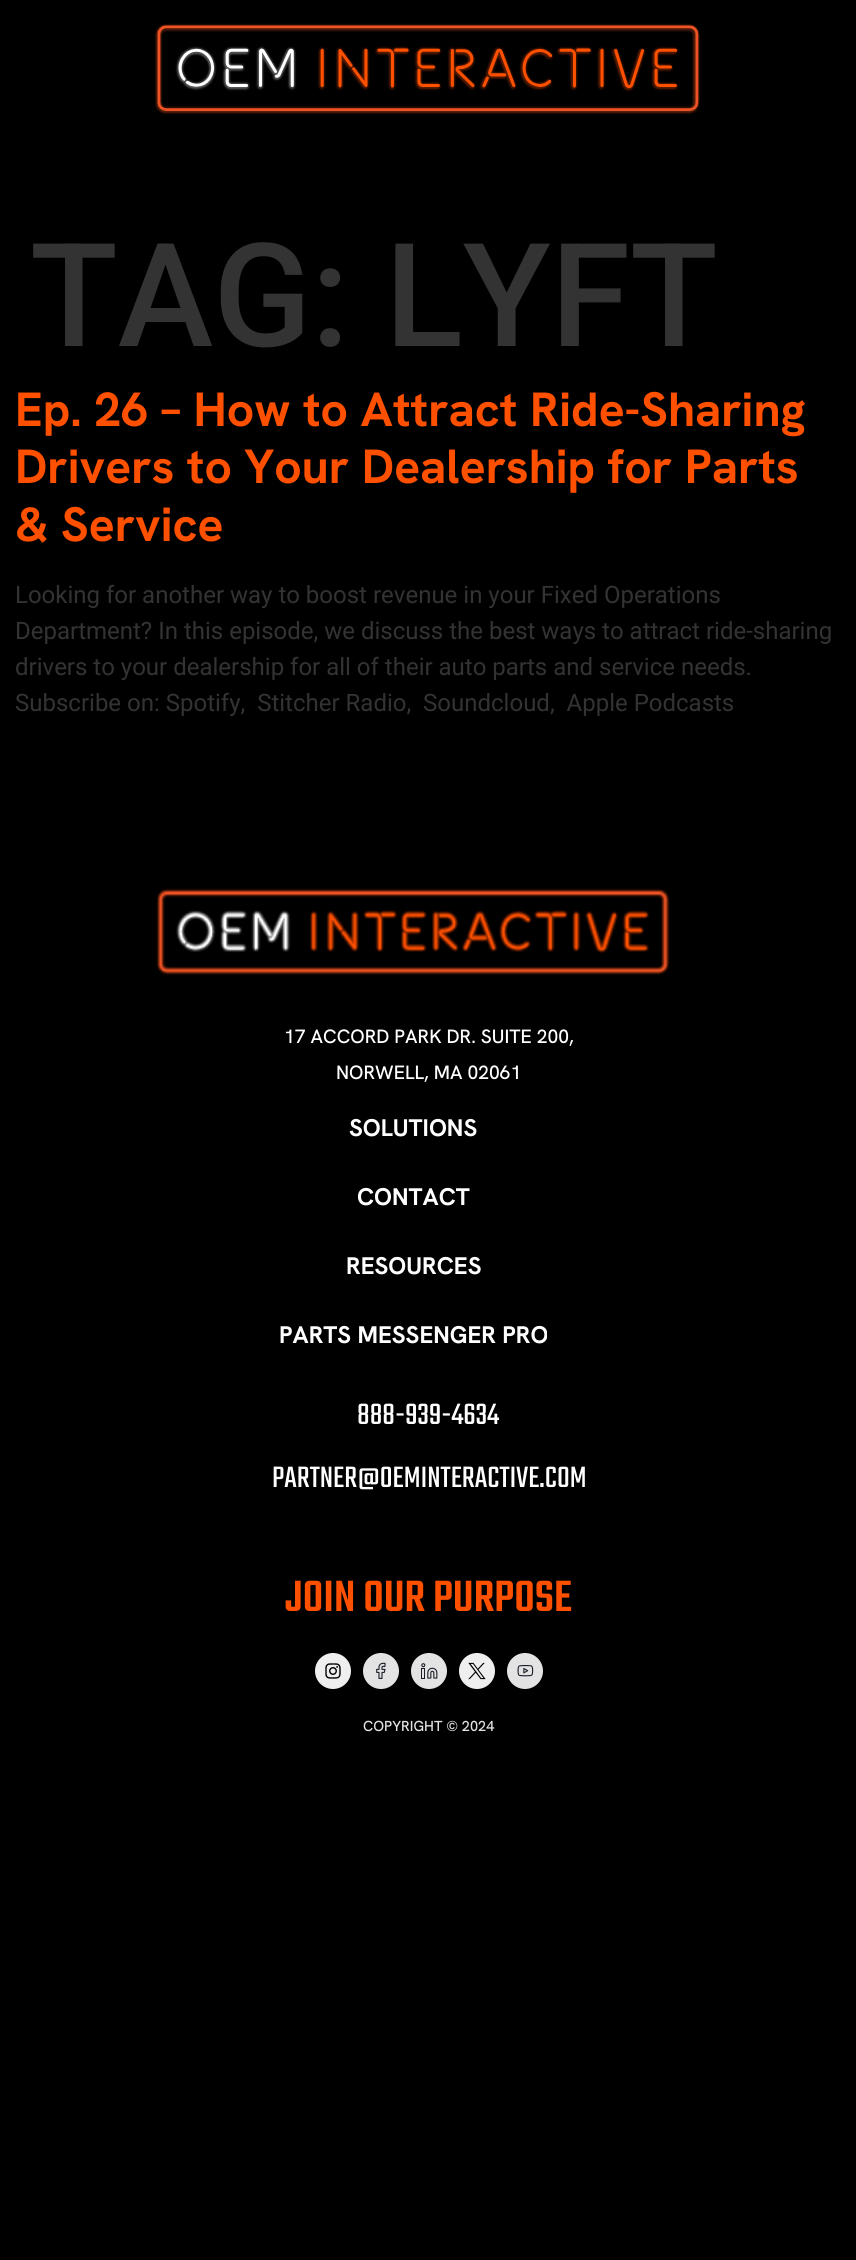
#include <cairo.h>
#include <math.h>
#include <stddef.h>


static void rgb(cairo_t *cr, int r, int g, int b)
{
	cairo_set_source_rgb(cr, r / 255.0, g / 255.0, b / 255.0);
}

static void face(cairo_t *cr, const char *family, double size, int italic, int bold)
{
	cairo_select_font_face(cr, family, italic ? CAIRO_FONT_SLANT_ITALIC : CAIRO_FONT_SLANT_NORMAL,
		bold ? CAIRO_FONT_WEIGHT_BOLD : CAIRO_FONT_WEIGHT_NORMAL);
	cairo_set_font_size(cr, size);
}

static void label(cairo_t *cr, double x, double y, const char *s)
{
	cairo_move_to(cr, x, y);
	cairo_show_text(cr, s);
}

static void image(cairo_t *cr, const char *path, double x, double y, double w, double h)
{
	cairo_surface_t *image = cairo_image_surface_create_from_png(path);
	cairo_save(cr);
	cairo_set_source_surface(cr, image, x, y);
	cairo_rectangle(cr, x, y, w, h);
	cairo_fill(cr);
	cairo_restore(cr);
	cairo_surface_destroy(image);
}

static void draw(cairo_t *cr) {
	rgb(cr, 0, 0, 0);
	cairo_paint(cr);
	image(cr, "image0.png", 154, 23, 547, 92);
	face(cr, "Roboto Medium", 144, 0, 0);
	rgb(cr, 51, 51, 51);
	label(cr, 30, 346, "TAG: LYFT");
	face(cr, "Hanken Grotesk", 48, 0, 1);
	rgb(cr, 255, 80, 0);
	label(cr, 15, 426, "Ep. 26 – How to Attract Ride-Sharing");
	label(cr, 15, 483, "Drivers to Your Dealership for Parts");
	label(cr, 15, 541, "& Service");
	face(cr, "Roboto", 24, 0, 0);
	rgb(cr, 51, 51, 51);
	label(cr, 15, 603, "Looking for another way to boost revenue in your Fixed Operations");
	label(cr, 15, 639, "Department? In this episode, we discuss the best ways to attract ride-sharing");
	label(cr, 15, 675, "drivers to your dealership for all of their auto parts and service needs.");
	label(cr, 15, 711, "Subscribe on: Spotify,  Stitcher Radio,  Soundcloud,  Apple Podcasts");
	image(cr, "image1.png", 156, 888, 514, 87);
	face(cr, "Hanken Grotesk Medium", 19.25, 0, 0);
	rgb(cr, 255, 255, 255);
	label(cr, 284, 1043, "17 ACCORD PARK DR. SUITE 200,");
	label(cr, 336, 1079, "NORWELL, MA 02061");
	face(cr, "Hanken Grotesk", 24, 0, 1);
	label(cr, 349, 1136, "SOLUTIONS");
	label(cr, 357, 1205, "CONTACT");
	label(cr, 346, 1274, "RESOURCES");
	label(cr, 279, 1343, "PARTS MESSENGER PRO");
	face(cr, "Teko", 32.5, 0, 0);
	label(cr, 357, 1424, "888-939-4634");
	label(cr, 272, 1487, "PARTNER@OEMINTERACTIVE.COM");
	face(cr, "Teko Medium", 48, 0, 0);
	rgb(cr, 255, 80, 0);
	label(cr, 285, 1611, "JOIN OUR PURPOSE");
	image(cr, "image2.png", 315, 1653, 36, 36);
	image(cr, "image3.png", 363, 1653, 36, 36);
	image(cr, "image4.png", 411, 1653, 36, 36);
	image(cr, "image5.png", 459, 1653, 36, 36);
	image(cr, "image6.png", 507, 1653, 36, 36);
	face(cr, "Hanken Grotesk Medium", 14.5, 0, 0);
	rgb(cr, 227, 227, 228);
	label(cr, 363, 1731, "COPYRIGHT © 2024");
}

int main(void) {
	cairo_surface_t *surface = cairo_image_surface_create(CAIRO_FORMAT_RGB24, 856, 2260);
	cairo_t *cr = cairo_create(surface);
	cairo_font_options_t *options = cairo_font_options_create();
	cairo_font_options_set_hint_metrics(options, CAIRO_HINT_METRICS_OFF);
	cairo_font_options_set_hint_style(options, CAIRO_HINT_STYLE_NONE);
	cairo_set_font_options(cr, options);
	cairo_set_miter_limit(cr, 4);
	draw(cr);
	cairo_surface_write_to_png(surface, "render.png");
	cairo_font_options_destroy(options);
	cairo_destroy(cr);
	cairo_surface_destroy(surface);
	return 0;
}
